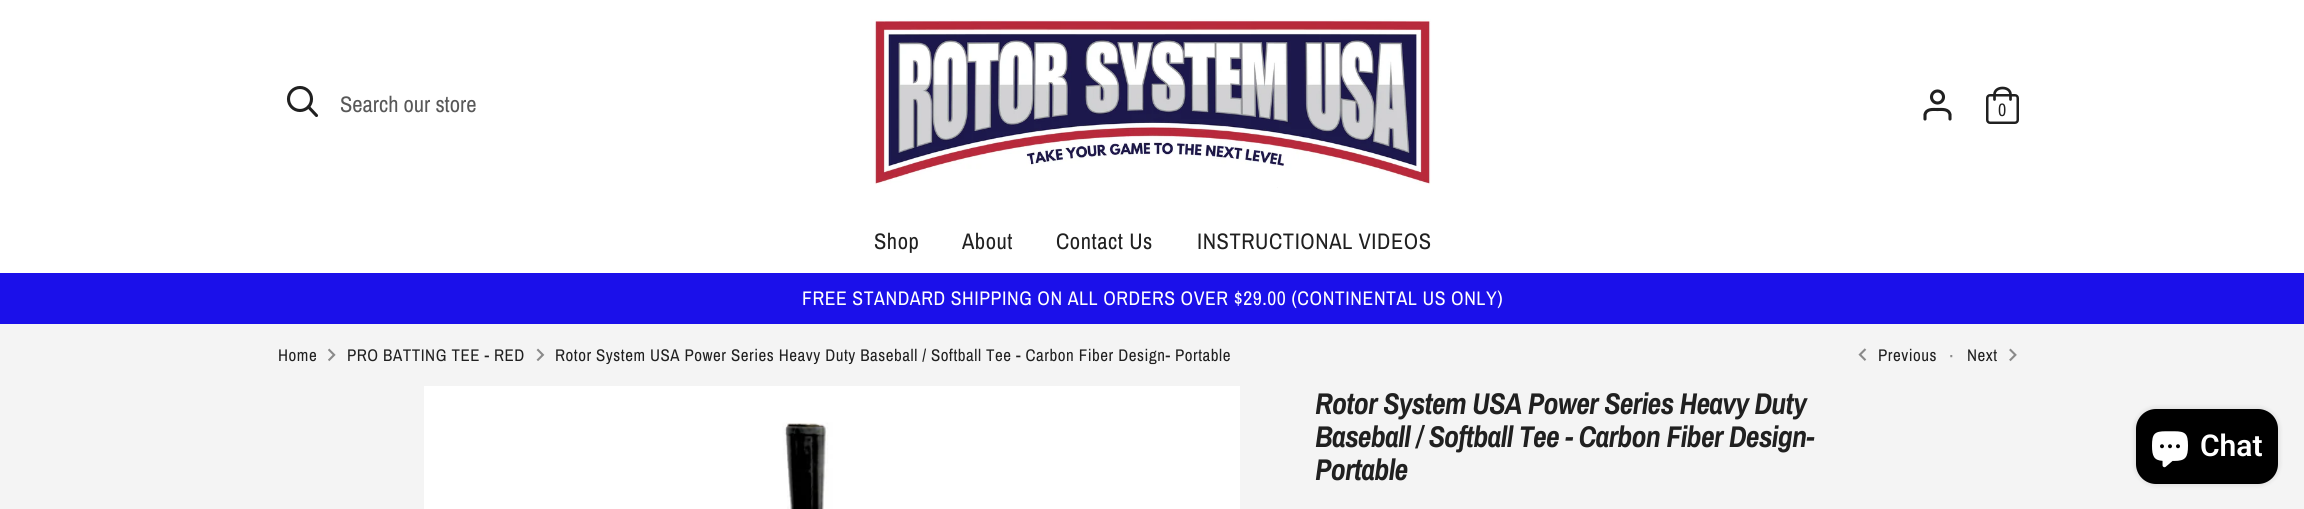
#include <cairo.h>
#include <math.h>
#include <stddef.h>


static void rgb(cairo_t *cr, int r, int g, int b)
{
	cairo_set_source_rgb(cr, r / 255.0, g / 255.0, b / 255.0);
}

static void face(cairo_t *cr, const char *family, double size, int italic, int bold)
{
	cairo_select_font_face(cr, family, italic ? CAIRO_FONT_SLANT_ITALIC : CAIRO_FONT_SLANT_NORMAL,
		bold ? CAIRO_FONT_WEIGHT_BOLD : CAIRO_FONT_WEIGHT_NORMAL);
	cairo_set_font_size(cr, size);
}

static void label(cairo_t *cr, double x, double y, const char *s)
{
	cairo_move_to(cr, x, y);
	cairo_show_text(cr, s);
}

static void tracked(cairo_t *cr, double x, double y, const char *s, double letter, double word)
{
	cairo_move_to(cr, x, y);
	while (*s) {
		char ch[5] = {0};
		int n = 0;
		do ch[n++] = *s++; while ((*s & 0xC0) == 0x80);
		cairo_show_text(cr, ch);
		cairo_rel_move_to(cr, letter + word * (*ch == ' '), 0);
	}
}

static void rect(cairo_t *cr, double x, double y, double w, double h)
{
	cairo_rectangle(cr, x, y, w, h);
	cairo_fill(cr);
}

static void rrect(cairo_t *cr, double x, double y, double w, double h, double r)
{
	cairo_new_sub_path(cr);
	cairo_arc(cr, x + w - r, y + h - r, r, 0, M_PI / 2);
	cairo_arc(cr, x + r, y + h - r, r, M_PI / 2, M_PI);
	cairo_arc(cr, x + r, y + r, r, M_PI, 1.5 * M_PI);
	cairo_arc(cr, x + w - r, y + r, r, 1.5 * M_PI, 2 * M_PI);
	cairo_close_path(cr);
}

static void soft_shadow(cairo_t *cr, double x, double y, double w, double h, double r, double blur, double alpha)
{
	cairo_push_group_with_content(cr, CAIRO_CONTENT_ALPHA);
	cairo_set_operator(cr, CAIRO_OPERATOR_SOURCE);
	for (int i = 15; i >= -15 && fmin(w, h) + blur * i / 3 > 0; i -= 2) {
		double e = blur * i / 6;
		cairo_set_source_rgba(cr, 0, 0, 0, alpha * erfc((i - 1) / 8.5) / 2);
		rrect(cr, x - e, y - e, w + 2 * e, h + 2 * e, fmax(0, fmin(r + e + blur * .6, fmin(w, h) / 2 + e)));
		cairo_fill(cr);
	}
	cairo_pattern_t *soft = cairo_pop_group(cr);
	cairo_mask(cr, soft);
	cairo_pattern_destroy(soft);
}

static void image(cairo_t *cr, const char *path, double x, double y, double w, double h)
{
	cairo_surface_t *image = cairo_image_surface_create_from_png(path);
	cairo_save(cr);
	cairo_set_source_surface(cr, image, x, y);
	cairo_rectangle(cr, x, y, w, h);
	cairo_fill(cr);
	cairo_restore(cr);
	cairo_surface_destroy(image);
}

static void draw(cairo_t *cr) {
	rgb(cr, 244, 244, 244);
	cairo_paint(cr);
	rgb(cr, 255, 255, 255);
	rect(cr, 0, 0, 2304, 273);
	cairo_arc(cr, 300, 99, 11.5, 0, 2 * M_PI);
	rgb(cr, 32, 32, 32);
	cairo_set_line_width(cr, 3.1);
	cairo_stroke(cr);
	cairo_new_path(cr);
	cairo_move_to(cr, 316.5, 115.5);
	cairo_line_to(cr, 308.5, 107);
	cairo_set_line_cap(cr, CAIRO_LINE_CAP_ROUND);
	cairo_stroke(cr);
	face(cr, "Archivo Narrow", 22.5, 0, 0);
	rgb(cr, 88, 88, 88);
	label(cr, 340, 112, "Search our store");
	image(cr, "image0.png", 871, 19, 560, 169);
	cairo_new_path(cr);
	cairo_move_to(cr, 1950, 119);
	cairo_line_to(cr, 1950, 114.5);
	cairo_curve_to(cr, 1948.5, 108.5, 1942, 109.5, 1937.5, 109.5);
	cairo_curve_to(cr, 1933, 109.5, 1926.5, 108.5, 1925, 114.5);
	cairo_line_to(cr, 1925, 119);
	rgb(cr, 32, 32, 32);
	cairo_stroke(cr);
	cairo_arc(cr, 1937.5, 97, 6, 0, 2 * M_PI);
	cairo_set_line_cap(cr, CAIRO_LINE_CAP_BUTT);
	cairo_stroke(cr);
	rrect(cr, 1987.25, 95.25, 30.5, 27.5, 2.75);
	cairo_set_line_width(cr, 2.5);
	cairo_stroke(cr);
	cairo_new_path(cr);
	cairo_move_to(cr, 1994.5, 99.5);
	cairo_line_to(cr, 1994.5, 94.5);
	cairo_curve_to(cr, 1994.5, 90.5, 1998, 88, 2002.5, 88);
	cairo_curve_to(cr, 2007, 88, 2010.5, 90.5, 2010.5, 94.5);
	cairo_line_to(cr, 2010.5, 99.5);
	cairo_set_line_width(cr, 2.7);
	cairo_set_line_cap(cr, CAIRO_LINE_CAP_ROUND);
	cairo_stroke(cr);
	face(cr, "Archivo Narrow", 18, 0, 0);
	label(cr, 1998, 116, "0");
	face(cr, "Archivo Narrow", 22.5, 0, 0);
	tracked(cr, 874, 249, "Shop", 0.55, 0);
	tracked(cr, 962, 249, "About", 0.55, 0);
	tracked(cr, 1056, 249, "Contact Us", 0.55, 0);
	tracked(cr, 1197, 249, "INSTRUCTIONAL VIDEOS", 0.55, 0);
	rgb(cr, 27, 16, 234);
	rect(cr, 0, 273, 2304, 51);
	face(cr, "Archivo Narrow", 19.7, 0, 0);
	rgb(cr, 255, 255, 255);
	tracked(cr, 802, 305, "FREE STANDARD SHIPPING ON ALL ORDERS OVER $29.00 (CONTINENTAL US ONLY)", 0.55, 0);
	face(cr, "Archivo Narrow", 16.9, 0, 0);
	rgb(cr, 32, 32, 32);
	tracked(cr, 278, 361, "Home", 0.55, 0);
	image(cr, "image1.png", 328, 348, 8, 14);
	tracked(cr, 347, 361, "PRO BATTING TEE - RED", 0.55, 0);
	image(cr, "image2.png", 536, 348, 9, 13);
	tracked(cr, 555, 361, "Rotor System USA Power Series Heavy Duty Baseball / Softball Tee - Carbon Fiber Design- Portable", 0.55, 0);
	image(cr, "image3.png", 1858, 348, 9, 13);
	tracked(cr, 1878, 361, "Previous", 0.55, 0);
	face(cr, "Archivo Narrow", 20, 0, 0);
	rgb(cr, 138, 138, 138);
	tracked(cr, 1949, 363, "·", 0.55, 0);
	face(cr, "Archivo Narrow", 16.9, 0, 0);
	rgb(cr, 32, 32, 32);
	tracked(cr, 1967, 361, "Next", 0.55, 0);
	image(cr, "image4.png", 2009, 348, 8, 14);
	image(cr, "image5.png", 424, 386, 816, 123);
	face(cr, "Archivo Narrow", 30, 1, 1);
	tracked(cr, 1315, 414, "Rotor System USA Power Series Heavy Duty", -0.75, 0);
	tracked(cr, 1315, 447, "Baseball / Softball Tee - Carbon Fiber Design-", -0.75, 0);
	tracked(cr, 1315, 480, "Portable", -0.75, 0);
	rgb(cr, 0, 0, 0);
	soft_shadow(cr, 2136, 409, 142, 75, 20, 3, 0.15);
	rgb(cr, 0, 0, 0);
	rrect(cr, 2136, 409, 142, 75, 20);
	cairo_fill(cr);
	image(cr, "image6.png", 2152, 431, 36, 37);
	face(cr, "Roboto SemiBold", 30, 0, 0);
	rgb(cr, 255, 255, 255);
	label(cr, 2200, 456, "Chat");
}

int main(void) {
	cairo_surface_t *surface = cairo_image_surface_create(CAIRO_FORMAT_RGB24, 2304, 509);
	cairo_t *cr = cairo_create(surface);
	cairo_font_options_t *options = cairo_font_options_create();
	cairo_font_options_set_hint_metrics(options, CAIRO_HINT_METRICS_OFF);
	cairo_font_options_set_hint_style(options, CAIRO_HINT_STYLE_NONE);
	cairo_set_font_options(cr, options);
	cairo_set_miter_limit(cr, 4);
	draw(cr);
	cairo_surface_write_to_png(surface, "render.png");
	cairo_font_options_destroy(options);
	cairo_destroy(cr);
	cairo_surface_destroy(surface);
	return 0;
}
